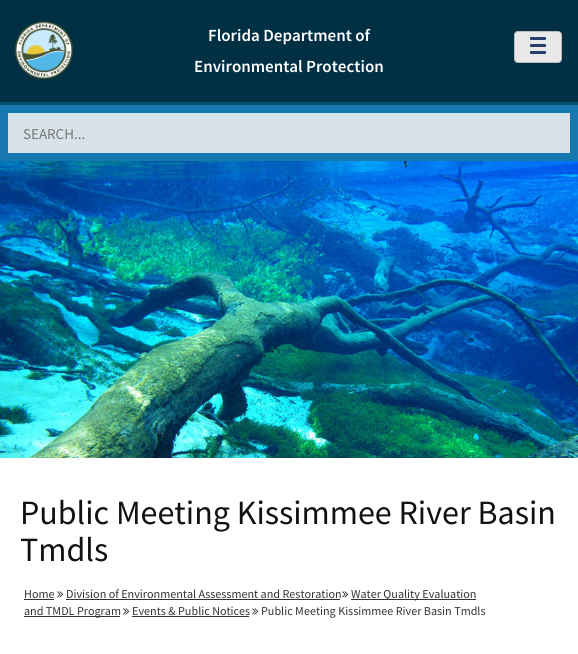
#include <cairo.h>
#include <math.h>
#include <stddef.h>


static void rgb(cairo_t *cr, int r, int g, int b)
{
	cairo_set_source_rgb(cr, r / 255.0, g / 255.0, b / 255.0);
}

static void face(cairo_t *cr, const char *family, double size, int italic, int bold)
{
	cairo_select_font_face(cr, family, italic ? CAIRO_FONT_SLANT_ITALIC : CAIRO_FONT_SLANT_NORMAL,
		bold ? CAIRO_FONT_WEIGHT_BOLD : CAIRO_FONT_WEIGHT_NORMAL);
	cairo_set_font_size(cr, size);
}

static void label(cairo_t *cr, double x, double y, const char *s)
{
	cairo_move_to(cr, x, y);
	cairo_show_text(cr, s);
}

static void rect(cairo_t *cr, double x, double y, double w, double h)
{
	cairo_rectangle(cr, x, y, w, h);
	cairo_fill(cr);
}

static void rrect(cairo_t *cr, double x, double y, double w, double h, double r)
{
	cairo_new_sub_path(cr);
	cairo_arc(cr, x + w - r, y + h - r, r, 0, M_PI / 2);
	cairo_arc(cr, x + r, y + h - r, r, M_PI / 2, M_PI);
	cairo_arc(cr, x + r, y + r, r, M_PI, 1.5 * M_PI);
	cairo_arc(cr, x + w - r, y + r, r, 1.5 * M_PI, 2 * M_PI);
	cairo_close_path(cr);
}

static void image(cairo_t *cr, const char *path, double x, double y, double w, double h)
{
	cairo_surface_t *image = cairo_image_surface_create_from_png(path);
	cairo_save(cr);
	cairo_set_source_surface(cr, image, x, y);
	cairo_rectangle(cr, x, y, w, h);
	cairo_fill(cr);
	cairo_restore(cr);
	cairo_surface_destroy(image);
}

static void draw(cairo_t *cr) {
	rgb(cr, 4, 82, 115);
	cairo_paint(cr);
	rgb(cr, 1, 48, 68);
	rect(cr, 0, 0, 578, 102);
	image(cr, "image0.png", 14, 21, 59, 59);
	rgb(cr, 232, 232, 232);
	rrect(cr, 514.5, 31.5, 47, 31, 3.5);
	cairo_fill_preserve(cr);
	rgb(cr, 187, 187, 187);
	cairo_set_line_width(cr, 1);
	cairo_stroke(cr);
	rgb(cr, 39, 63, 104);
	rrect(cr, 530, 37, 16, 3, 1);
	cairo_fill(cr);
	rrect(cr, 530, 44, 16, 3, 1);
	cairo_fill(cr);
	rrect(cr, 530, 51, 16, 3, 1);
	cairo_fill(cr);
	face(cr, "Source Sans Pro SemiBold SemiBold", 17, 0, 0);
	rgb(cr, 255, 255, 255);
	label(cr, 208, 41, "Florida Department of");
	label(cr, 194, 72, "Environmental Protection");
	rgb(cr, 215, 227, 233);
	cairo_rectangle(cr, 4, 109, 570, 48);
	cairo_fill_preserve(cr);
	rgb(cr, 22, 120, 175);
	cairo_set_line_width(cr, 8);
	cairo_stroke(cr);
	face(cr, "Source Sans Pro", 15, 0, 0);
	rgb(cr, 117, 117, 117);
	label(cr, 23, 139, "SEARCH...");
	image(cr, "image1.png", 0, 161, 578, 297);
	rgb(cr, 255, 255, 255);
	rect(cr, 0, 458, 578, 196);
	face(cr, "Source Sans Pro", 34, 0, 0);
	rgb(cr, 17, 17, 17);
	label(cr, 20, 524, "Public Meeting Kissimmee River Basin");
	label(cr, 20, 561, "Tmdls");
	face(cr, "Source Sans Pro", 12.1, 0, 0);
	rgb(cr, 51, 51, 51);
	label(cr, 24, 598, "Home");
	rect(cr, 24, 599, 30, 1);
	image(cr, "image2.png", 57, 591, 7, 7);
	label(cr, 66, 598, "Division of Environmental Assessment and Restoration");
	rect(cr, 66, 599, 274, 1);
	image(cr, "image2.png", 342, 591, 7, 7);
	rect(cr, 351, 599, 125, 1);
	label(cr, 351, 598, "Water Quality Evaluation");
	rect(cr, 24, 616, 96, 1);
	label(cr, 24, 615, "and TMDL Program");
	image(cr, "image2.png", 123, 608, 7, 7);
	label(cr, 132, 615, "Events & Public Notices");
	rect(cr, 132, 616, 117, 1);
	image(cr, "image2.png", 252, 608, 7, 7);
	label(cr, 261, 615, "Public Meeting Kissimmee River Basin Tmdls");
}

int main(void) {
	cairo_surface_t *surface = cairo_image_surface_create(CAIRO_FORMAT_RGB24, 578, 654);
	cairo_t *cr = cairo_create(surface);
	cairo_font_options_t *options = cairo_font_options_create();
	cairo_font_options_set_hint_metrics(options, CAIRO_HINT_METRICS_OFF);
	cairo_font_options_set_hint_style(options, CAIRO_HINT_STYLE_NONE);
	cairo_set_font_options(cr, options);
	cairo_set_miter_limit(cr, 4);
	draw(cr);
	cairo_surface_write_to_png(surface, "render.png");
	cairo_font_options_destroy(options);
	cairo_destroy(cr);
	cairo_surface_destroy(surface);
	return 0;
}
